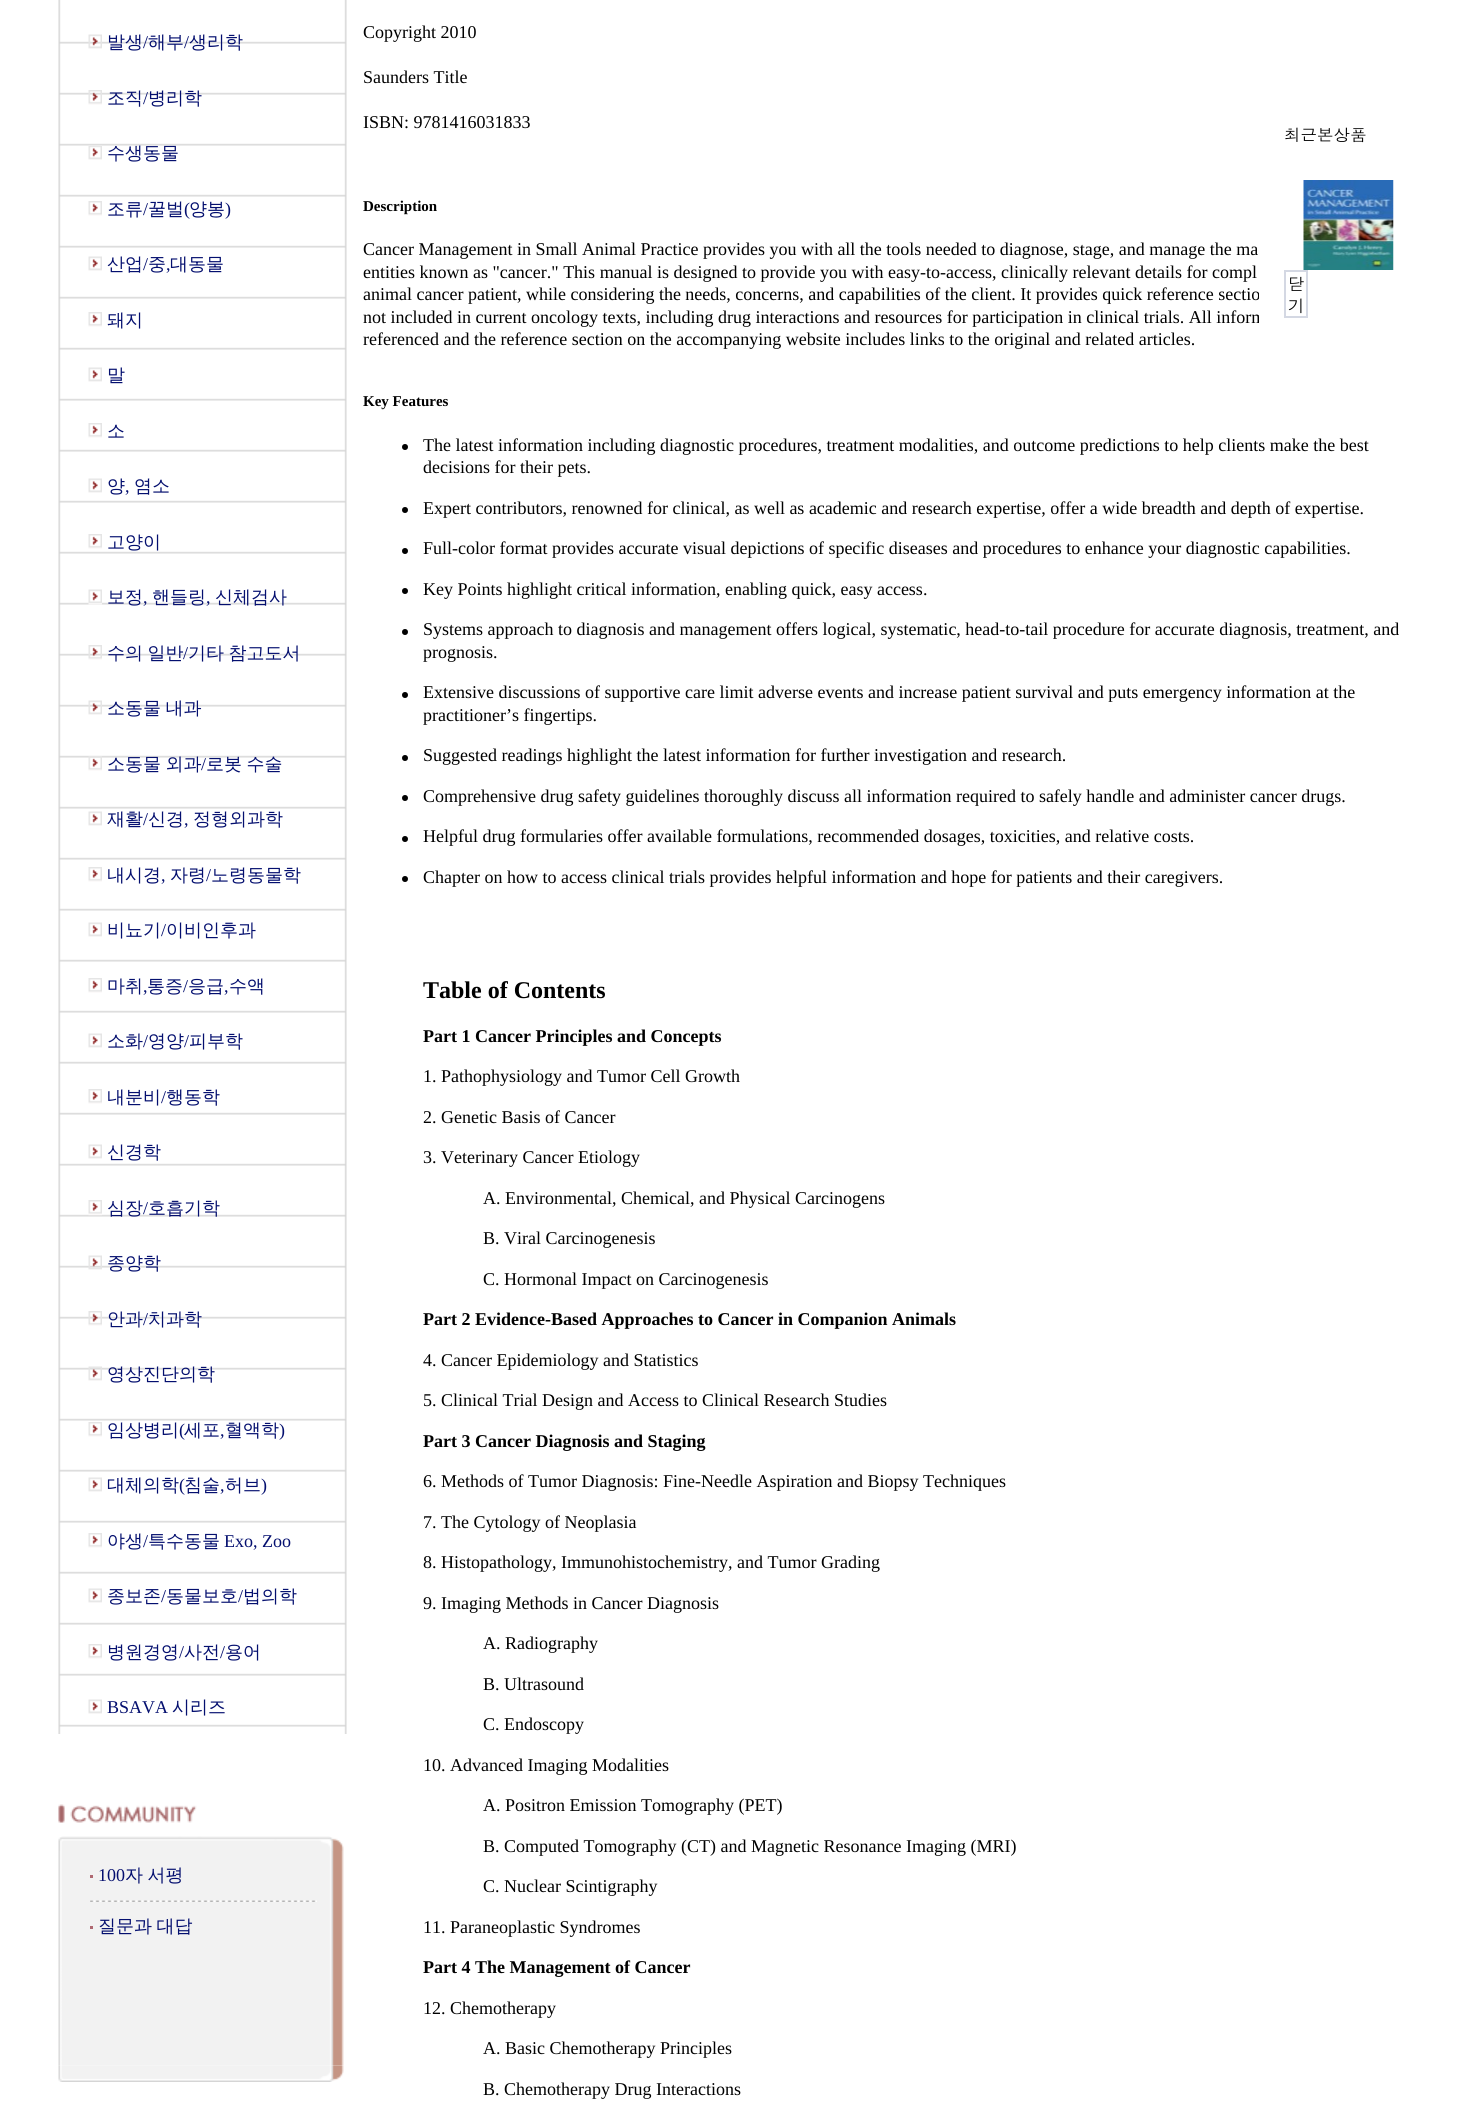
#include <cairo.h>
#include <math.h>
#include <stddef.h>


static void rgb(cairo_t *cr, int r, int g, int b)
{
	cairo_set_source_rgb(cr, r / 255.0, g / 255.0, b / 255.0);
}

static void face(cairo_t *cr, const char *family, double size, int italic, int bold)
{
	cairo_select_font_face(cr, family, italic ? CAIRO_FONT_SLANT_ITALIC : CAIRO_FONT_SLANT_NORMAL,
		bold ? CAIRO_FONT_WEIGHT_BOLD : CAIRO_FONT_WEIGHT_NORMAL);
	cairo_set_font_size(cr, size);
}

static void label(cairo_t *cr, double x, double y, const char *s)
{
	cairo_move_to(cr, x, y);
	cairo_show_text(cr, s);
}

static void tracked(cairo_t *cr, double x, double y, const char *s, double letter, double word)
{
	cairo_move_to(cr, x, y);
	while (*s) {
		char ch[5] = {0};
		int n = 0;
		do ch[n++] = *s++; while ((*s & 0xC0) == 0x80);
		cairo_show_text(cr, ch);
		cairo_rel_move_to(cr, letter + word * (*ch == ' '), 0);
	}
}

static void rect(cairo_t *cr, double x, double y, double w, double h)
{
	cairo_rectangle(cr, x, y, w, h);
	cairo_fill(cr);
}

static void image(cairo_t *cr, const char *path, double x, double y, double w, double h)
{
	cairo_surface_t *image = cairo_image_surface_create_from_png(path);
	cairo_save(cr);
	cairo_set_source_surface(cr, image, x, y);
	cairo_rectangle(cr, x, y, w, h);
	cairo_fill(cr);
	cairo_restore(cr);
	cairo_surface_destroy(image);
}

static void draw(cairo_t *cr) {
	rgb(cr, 255, 255, 255);
	cairo_paint(cr);
	image(cr, "image0.png", 58, 0, 289, 1734);
	image(cr, "image1.png", 88, 34, 14, 15);
	face(cr, "WenQuanYi Zen Hei Medium", 18, 0, 0);
	rgb(cr, 4, 15, 111);
	label(cr, 107, 48, "발생");
	face(cr, "Liberation Serif", 18, 0, 0);
	label(cr, 143, 48, "/");
	face(cr, "WenQuanYi Zen Hei Medium", 18, 0, 0);
	label(cr, 148, 48, "해부");
	face(cr, "Liberation Serif", 18, 0, 0);
	label(cr, 184, 48, "/");
	face(cr, "WenQuanYi Zen Hei Medium", 18, 0, 0);
	label(cr, 189, 48, "생리학");
	image(cr, "image2.png", 88, 90, 14, 15);
	label(cr, 107, 104, "조직");
	face(cr, "Liberation Serif", 18, 0, 0);
	label(cr, 143, 104, "/");
	face(cr, "WenQuanYi Zen Hei Medium", 18, 0, 0);
	label(cr, 148, 104, "병리학");
	image(cr, "image3.png", 88, 146, 14, 14);
	label(cr, 107, 159, "수생동물");
	image(cr, "image4.png", 88, 201, 14, 15);
	label(cr, 107, 215, "조류");
	face(cr, "Liberation Serif", 18, 0, 0);
	label(cr, 143, 215, "/");
	face(cr, "WenQuanYi Zen Hei Medium", 18, 0, 0);
	label(cr, 148, 215, "꿀벌");
	face(cr, "Liberation Serif", 18, 0, 0);
	label(cr, 184, 215, "(");
	face(cr, "WenQuanYi Zen Hei Medium", 18, 0, 0);
	label(cr, 189, 215, "양봉");
	face(cr, "Liberation Serif", 18, 0, 0);
	label(cr, 225, 215, ")");
	image(cr, "image5.png", 88, 256, 14, 15);
	face(cr, "WenQuanYi Zen Hei Medium", 18, 0, 0);
	label(cr, 107, 270, "산업");
	face(cr, "Liberation Serif", 18, 0, 0);
	label(cr, 143, 270, "/");
	face(cr, "WenQuanYi Zen Hei Medium", 18, 0, 0);
	label(cr, 148, 270, "중");
	face(cr, "Liberation Serif", 18, 0, 0);
	label(cr, 166, 270, ",");
	face(cr, "WenQuanYi Zen Hei Medium", 18, 0, 0);
	label(cr, 170, 270, "대동물");
	image(cr, "image4.png", 88, 312, 14, 15);
	label(cr, 107, 326, "돼지");
	image(cr, "image5.png", 88, 367, 14, 15);
	label(cr, 107, 381, "말");
	image(cr, "image4.png", 88, 423, 14, 15);
	label(cr, 107, 437, "소");
	image(cr, "image5.png", 88, 478, 14, 15);
	label(cr, 107, 492, "양");
	face(cr, "Liberation Serif", 18, 0, 0);
	label(cr, 125, 492, ",");
	face(cr, "WenQuanYi Zen Hei Medium", 18, 0, 0);
	label(cr, 134, 492, "염소");
	image(cr, "image4.png", 88, 534, 14, 15);
	label(cr, 107, 548, "고양이");
	image(cr, "image6.png", 88, 589, 14, 16);
	label(cr, 107, 603, "보정");
	face(cr, "Liberation Serif", 18, 0, 0);
	label(cr, 143, 603, ",");
	face(cr, "WenQuanYi Zen Hei Medium", 18, 0, 0);
	label(cr, 152, 603, "핸들링");
	face(cr, "Liberation Serif", 18, 0, 0);
	label(cr, 206, 603, ",");
	face(cr, "WenQuanYi Zen Hei Medium", 18, 0, 0);
	label(cr, 215, 603, "신체검사");
	image(cr, "image7.png", 88, 645, 14, 15);
	tracked(cr, 107, 659, "수의 일반", 0, -1);
	face(cr, "Liberation Serif", 18, 0, 0);
	label(cr, 183, 659, "/");
	face(cr, "WenQuanYi Zen Hei Medium", 18, 0, 0);
	tracked(cr, 188, 659, "기타 참고도서", 0, -1);
	image(cr, "image8.png", 88, 700, 14, 15);
	tracked(cr, 107, 714, "소동물 내과", 0, -1);
	image(cr, "image9.png", 88, 756, 14, 15);
	tracked(cr, 107, 770, "소동물 외과", 0, -1);
	face(cr, "Liberation Serif", 18, 0, 0);
	label(cr, 201, 770, "/");
	face(cr, "WenQuanYi Zen Hei Medium", 18, 0, 0);
	tracked(cr, 206, 770, "로봇 수술", 0, -1);
	image(cr, "image5.png", 88, 811, 14, 15);
	label(cr, 107, 825, "재활");
	face(cr, "Liberation Serif", 18, 0, 0);
	label(cr, 143, 825, "/");
	face(cr, "WenQuanYi Zen Hei Medium", 18, 0, 0);
	label(cr, 148, 825, "신경");
	face(cr, "Liberation Serif", 18, 0, 0);
	label(cr, 184, 825, ",");
	face(cr, "WenQuanYi Zen Hei Medium", 18, 0, 0);
	label(cr, 193, 825, "정형외과학");
	image(cr, "image4.png", 88, 867, 14, 15);
	label(cr, 107, 881, "내시경");
	face(cr, "Liberation Serif", 18, 0, 0);
	label(cr, 161, 881, ",");
	face(cr, "WenQuanYi Zen Hei Medium", 18, 0, 0);
	label(cr, 170, 881, "자령");
	face(cr, "Liberation Serif", 18, 0, 0);
	label(cr, 206, 881, "/");
	face(cr, "WenQuanYi Zen Hei Medium", 18, 0, 0);
	label(cr, 211, 881, "노령동물학");
	image(cr, "image5.png", 88, 922, 14, 15);
	label(cr, 107, 936, "비뇨기");
	face(cr, "Liberation Serif", 18, 0, 0);
	label(cr, 161, 936, "/");
	face(cr, "WenQuanYi Zen Hei Medium", 18, 0, 0);
	label(cr, 166, 936, "이비인후과");
	image(cr, "image4.png", 88, 978, 14, 15);
	label(cr, 107, 992, "마취");
	face(cr, "Liberation Serif", 18, 0, 0);
	label(cr, 143, 992, ",");
	face(cr, "WenQuanYi Zen Hei Medium", 18, 0, 0);
	label(cr, 147, 992, "통증");
	face(cr, "Liberation Serif", 18, 0, 0);
	label(cr, 183, 992, "/");
	face(cr, "WenQuanYi Zen Hei Medium", 18, 0, 0);
	label(cr, 188, 992, "응급");
	face(cr, "Liberation Serif", 18, 0, 0);
	label(cr, 224, 992, ",");
	face(cr, "WenQuanYi Zen Hei Medium", 18, 0, 0);
	label(cr, 229, 992, "수액");
	image(cr, "image5.png", 88, 1033, 14, 15);
	label(cr, 107, 1047, "소화");
	face(cr, "Liberation Serif", 18, 0, 0);
	label(cr, 143, 1047, "/");
	face(cr, "WenQuanYi Zen Hei Medium", 18, 0, 0);
	label(cr, 148, 1047, "영양");
	face(cr, "Liberation Serif", 18, 0, 0);
	label(cr, 184, 1047, "/");
	face(cr, "WenQuanYi Zen Hei Medium", 18, 0, 0);
	label(cr, 189, 1047, "피부학");
	image(cr, "image4.png", 88, 1089, 14, 15);
	label(cr, 107, 1103, "내분비");
	face(cr, "Liberation Serif", 18, 0, 0);
	label(cr, 161, 1103, "/");
	face(cr, "WenQuanYi Zen Hei Medium", 18, 0, 0);
	label(cr, 166, 1103, "행동학");
	image(cr, "image5.png", 88, 1144, 14, 15);
	label(cr, 107, 1158, "신경학");
	image(cr, "image10.png", 88, 1200, 14, 16);
	label(cr, 107, 1214, "심장");
	face(cr, "Liberation Serif", 18, 0, 0);
	label(cr, 143, 1214, "/");
	face(cr, "WenQuanYi Zen Hei Medium", 18, 0, 0);
	label(cr, 148, 1214, "호흡기학");
	image(cr, "image11.png", 88, 1255, 14, 15);
	label(cr, 107, 1269, "종양학");
	image(cr, "image12.png", 88, 1311, 14, 15);
	label(cr, 107, 1325, "안과");
	face(cr, "Liberation Serif", 18, 0, 0);
	label(cr, 143, 1325, "/");
	face(cr, "WenQuanYi Zen Hei Medium", 18, 0, 0);
	label(cr, 148, 1325, "치과학");
	image(cr, "image13.png", 88, 1366, 14, 15);
	label(cr, 107, 1380, "영상진단의학");
	image(cr, "image4.png", 88, 1422, 14, 15);
	label(cr, 107, 1436, "임상병리");
	face(cr, "Liberation Serif", 18, 0, 0);
	label(cr, 179, 1436, "(");
	face(cr, "WenQuanYi Zen Hei Medium", 18, 0, 0);
	label(cr, 184, 1436, "세포");
	face(cr, "Liberation Serif", 18, 0, 0);
	label(cr, 220, 1436, ",");
	face(cr, "WenQuanYi Zen Hei Medium", 18, 0, 0);
	label(cr, 225, 1436, "혈액학");
	face(cr, "Liberation Serif", 18, 0, 0);
	label(cr, 279, 1436, ")");
	image(cr, "image5.png", 88, 1477, 14, 15);
	face(cr, "WenQuanYi Zen Hei Medium", 18, 0, 0);
	label(cr, 107, 1491, "대체의학");
	face(cr, "Liberation Serif", 18, 0, 0);
	label(cr, 179, 1491, "(");
	face(cr, "WenQuanYi Zen Hei Medium", 18, 0, 0);
	label(cr, 184, 1491, "침술");
	face(cr, "Liberation Serif", 18, 0, 0);
	label(cr, 220, 1491, ",");
	face(cr, "WenQuanYi Zen Hei Medium", 18, 0, 0);
	label(cr, 225, 1491, "허브");
	face(cr, "Liberation Serif", 18, 0, 0);
	label(cr, 261, 1491, ")");
	image(cr, "image4.png", 88, 1533, 14, 15);
	face(cr, "WenQuanYi Zen Hei Medium", 18, 0, 0);
	label(cr, 107, 1547, "야생");
	face(cr, "Liberation Serif", 18, 0, 0);
	label(cr, 143, 1547, "/");
	face(cr, "WenQuanYi Zen Hei Medium", 18, 0, 0);
	label(cr, 148, 1547, "특수동물");
	face(cr, "Liberation Serif", 18, 0, 0);
	label(cr, 224, 1547, "Exo, Zoo");
	image(cr, "image5.png", 88, 1588, 14, 15);
	face(cr, "WenQuanYi Zen Hei Medium", 18, 0, 0);
	label(cr, 107, 1602, "종보존");
	face(cr, "Liberation Serif", 18, 0, 0);
	label(cr, 161, 1602, "/");
	face(cr, "WenQuanYi Zen Hei Medium", 18, 0, 0);
	label(cr, 166, 1602, "동물보호");
	face(cr, "Liberation Serif", 18, 0, 0);
	label(cr, 238, 1602, "/");
	face(cr, "WenQuanYi Zen Hei Medium", 18, 0, 0);
	label(cr, 243, 1602, "법의학");
	image(cr, "image4.png", 88, 1644, 14, 15);
	label(cr, 107, 1658, "병원경영");
	face(cr, "Liberation Serif", 18, 0, 0);
	label(cr, 179, 1658, "/");
	face(cr, "WenQuanYi Zen Hei Medium", 18, 0, 0);
	label(cr, 184, 1658, "사전");
	face(cr, "Liberation Serif", 18, 0, 0);
	label(cr, 220, 1658, "/");
	face(cr, "WenQuanYi Zen Hei Medium", 18, 0, 0);
	label(cr, 225, 1658, "용어");
	image(cr, "image5.png", 88, 1699, 14, 15);
	face(cr, "Liberation Serif", 18, 0, 0);
	label(cr, 107, 1713, "BSAVA");
	face(cr, "WenQuanYi Zen Hei Medium", 18, 0, 0);
	label(cr, 172, 1713, "시리즈");
	image(cr, "image14.png", 58, 1804, 139, 19);
	image(cr, "image15.png", 58, 1836, 286, 15);
	image(cr, "image16.png", 58, 1851, 286, 215);
	rgb(cr, 175, 105, 114);
	rect(cr, 90, 1875, 3, 3);
	face(cr, "Liberation Serif", 18, 0, 0);
	rgb(cr, 4, 15, 111);
	label(cr, 98, 1881, "100");
	face(cr, "WenQuanYi Zen Hei Medium", 18, 0, 0);
	tracked(cr, 125, 1881, "자 서평", 0, -1);
	image(cr, "image17.png", 90, 1900, 227, 2);
	rgb(cr, 175, 105, 114);
	rect(cr, 90, 1926, 3, 3);
	rgb(cr, 4, 15, 111);
	tracked(cr, 98, 1932, "질문과 대답", 0, -1);
	image(cr, "image18.png", 58, 2065, 286, 17);
	face(cr, "Liberation Serif", 18, 0, 0);
	rgb(cr, 0, 0, 0);
	label(cr, 363, 38, "Copyright 2010");
	label(cr, 363, 83, "Saunders Title");
	label(cr, 363, 128, "ISBN: 9781416031833");
	face(cr, "Liberation Serif", 15, 0, 1);
	label(cr, 363, 211, "Description");
	face(cr, "Liberation Serif", 18, 0, 0);
	label(cr, 363, 255, "Cancer Management in Small Animal Practice provides you with all the tools needed to diagnose, stage, and manage the ma");
	label(cr, 363, 278, "entities known as \"cancer.\" This manual is designed to provide you with easy-to-access, clinically relevant details for compl");
	label(cr, 363, 300, "animal cancer patient, while considering the needs, concerns, and capabilities of the client. It provides quick reference sectio");
	label(cr, 363, 323, "not included in current oncology texts, including drug interactions and resources for participation in clinical trials. All inform");
	label(cr, 363, 345, "referenced and the reference section on the accompanying website includes links to the original and related articles.");
	face(cr, "Liberation Serif", 15, 0, 1);
	label(cr, 363, 406, "Key Features");
	cairo_new_path(cr);
	cairo_arc(cr, 405, 447, 3, 0, 2 * M_PI);
	cairo_fill(cr);
	face(cr, "Liberation Serif", 18, 0, 0);
	label(cr, 423, 451, "The latest information including diagnostic procedures, treatment modalities, and outcome predictions to help clients make the best");
	label(cr, 423, 473, "decisions for their pets.");
	cairo_new_path(cr);
	cairo_arc(cr, 405, 510, 3, 0, 2 * M_PI);
	cairo_fill(cr);
	label(cr, 423, 514, "Expert contributors, renowned for clinical, as well as academic and research expertise, offer a wide breadth and depth of expertise.");
	cairo_new_path(cr);
	cairo_arc(cr, 405, 551, 3, 0, 2 * M_PI);
	cairo_fill(cr);
	label(cr, 423, 554, "Full-color format provides accurate visual depictions of specific diseases and procedures to enhance your diagnostic capabilities.");
	cairo_new_path(cr);
	cairo_arc(cr, 405, 591, 3, 0, 2 * M_PI);
	cairo_fill(cr);
	label(cr, 423, 595, "Key Points highlight critical information, enabling quick, easy access.");
	cairo_new_path(cr);
	cairo_arc(cr, 405, 632, 3, 0, 2 * M_PI);
	cairo_fill(cr);
	label(cr, 423, 635, "Systems approach to diagnosis and management offers logical, systematic, head-to-tail procedure for accurate diagnosis, treatment, and");
	label(cr, 423, 658, "prognosis.");
	cairo_new_path(cr);
	cairo_arc(cr, 405, 695, 3, 0, 2 * M_PI);
	cairo_fill(cr);
	label(cr, 423, 698, "Extensive discussions of supportive care limit adverse events and increase patient survival and puts emergency information at the");
	label(cr, 423, 721, "practitioner’s fingertips.");
	cairo_new_path(cr);
	cairo_arc(cr, 405, 758, 3, 0, 2 * M_PI);
	cairo_fill(cr);
	label(cr, 423, 761, "Suggested readings highlight the latest information for further investigation and research.");
	cairo_new_path(cr);
	cairo_arc(cr, 405, 798, 3, 0, 2 * M_PI);
	cairo_fill(cr);
	label(cr, 423, 802, "Comprehensive drug safety guidelines thoroughly discuss all information required to safely handle and administer cancer drugs.");
	cairo_new_path(cr);
	cairo_arc(cr, 405, 839, 3, 0, 2 * M_PI);
	cairo_fill(cr);
	label(cr, 423, 842, "Helpful drug formularies offer available formulations, recommended dosages, toxicities, and relative costs.");
	cairo_new_path(cr);
	cairo_arc(cr, 405, 879, 3, 0, 2 * M_PI);
	cairo_fill(cr);
	label(cr, 423, 883, "Chapter on how to access clinical trials provides helpful information and hope for patients and their caregivers.");
	face(cr, "Liberation Serif", 24, 0, 1);
	label(cr, 423, 998, "Table of Contents");
	face(cr, "Liberation Serif", 18, 0, 1);
	label(cr, 423, 1042, "Part 1 Cancer Principles and Concepts");
	face(cr, "Liberation Serif", 18, 0, 0);
	label(cr, 423, 1082, "1. Pathophysiology and Tumor Cell Growth");
	label(cr, 423, 1123, "2. Genetic Basis of Cancer");
	label(cr, 423, 1163, "3. Veterinary Cancer Etiology");
	label(cr, 483, 1204, "A. Environmental, Chemical, and Physical Carcinogens");
	label(cr, 483, 1244, "B. Viral Carcinogenesis");
	label(cr, 483, 1285, "C. Hormonal Impact on Carcinogenesis");
	face(cr, "Liberation Serif", 18, 0, 1);
	label(cr, 423, 1325, "Part 2 Evidence-Based Approaches to Cancer in Companion Animals");
	face(cr, "Liberation Serif", 18, 0, 0);
	label(cr, 423, 1366, "4. Cancer Epidemiology and Statistics");
	label(cr, 423, 1406, "5. Clinical Trial Design and Access to Clinical Research Studies");
	face(cr, "Liberation Serif", 18, 0, 1);
	label(cr, 423, 1447, "Part 3 Cancer Diagnosis and Staging");
	face(cr, "Liberation Serif", 18, 0, 0);
	label(cr, 423, 1487, "6. Methods of Tumor Diagnosis: Fine-Needle Aspiration and Biopsy Techniques");
	label(cr, 423, 1528, "7. The Cytology of Neoplasia");
	label(cr, 423, 1568, "8. Histopathology, Immunohistochemistry, and Tumor Grading");
	label(cr, 423, 1609, "9. Imaging Methods in Cancer Diagnosis");
	label(cr, 483, 1649, "A. Radiography");
	label(cr, 483, 1690, "B. Ultrasound");
	label(cr, 483, 1730, "C. Endoscopy");
	label(cr, 423, 1771, "10. Advanced Imaging Modalities");
	label(cr, 483, 1811, "A. Positron Emission Tomography (PET)");
	label(cr, 483, 1852, "B. Computed Tomography (CT) and Magnetic Resonance Imaging (MRI)");
	label(cr, 483, 1892, "C. Nuclear Scintigraphy");
	label(cr, 423, 1933, "11. Paraneoplastic Syndromes");
	face(cr, "Liberation Serif", 18, 0, 1);
	label(cr, 423, 1973, "Part 4 The Management of Cancer");
	face(cr, "Liberation Serif", 18, 0, 0);
	label(cr, 423, 2014, "12. Chemotherapy");
	label(cr, 483, 2054, "A. Basic Chemotherapy Principles");
	label(cr, 483, 2095, "B. Chemotherapy Drug Interactions");
	rgb(cr, 255, 255, 255);
	rect(cr, 1259, 293, 6, 30);
	face(cr, "Dotum", 16.5, 0, 0);
	rgb(cr, 0, 0, 0);
	label(cr, 1284, 141, "최근본상품");
	image(cr, "image19.png", 1303, 180, 91, 90);
	cairo_rectangle(cr, 1285, 271, 22, 46);
	rgb(cr, 212, 216, 227);
	cairo_stroke(cr);
	rgb(cr, 0, 0, 0);
	label(cr, 1288, 290, "닫");
	label(cr, 1288, 312, "기");
}

int main(void) {
	cairo_surface_t *surface = cairo_image_surface_create(CAIRO_FORMAT_RGB24, 1476, 2119);
	cairo_t *cr = cairo_create(surface);
	cairo_font_options_t *options = cairo_font_options_create();
	cairo_font_options_set_hint_metrics(options, CAIRO_HINT_METRICS_OFF);
	cairo_font_options_set_hint_style(options, CAIRO_HINT_STYLE_NONE);
	cairo_set_font_options(cr, options);
	cairo_set_miter_limit(cr, 4);
	draw(cr);
	cairo_surface_write_to_png(surface, "render.png");
	cairo_font_options_destroy(options);
	cairo_destroy(cr);
	cairo_surface_destroy(surface);
	return 0;
}
